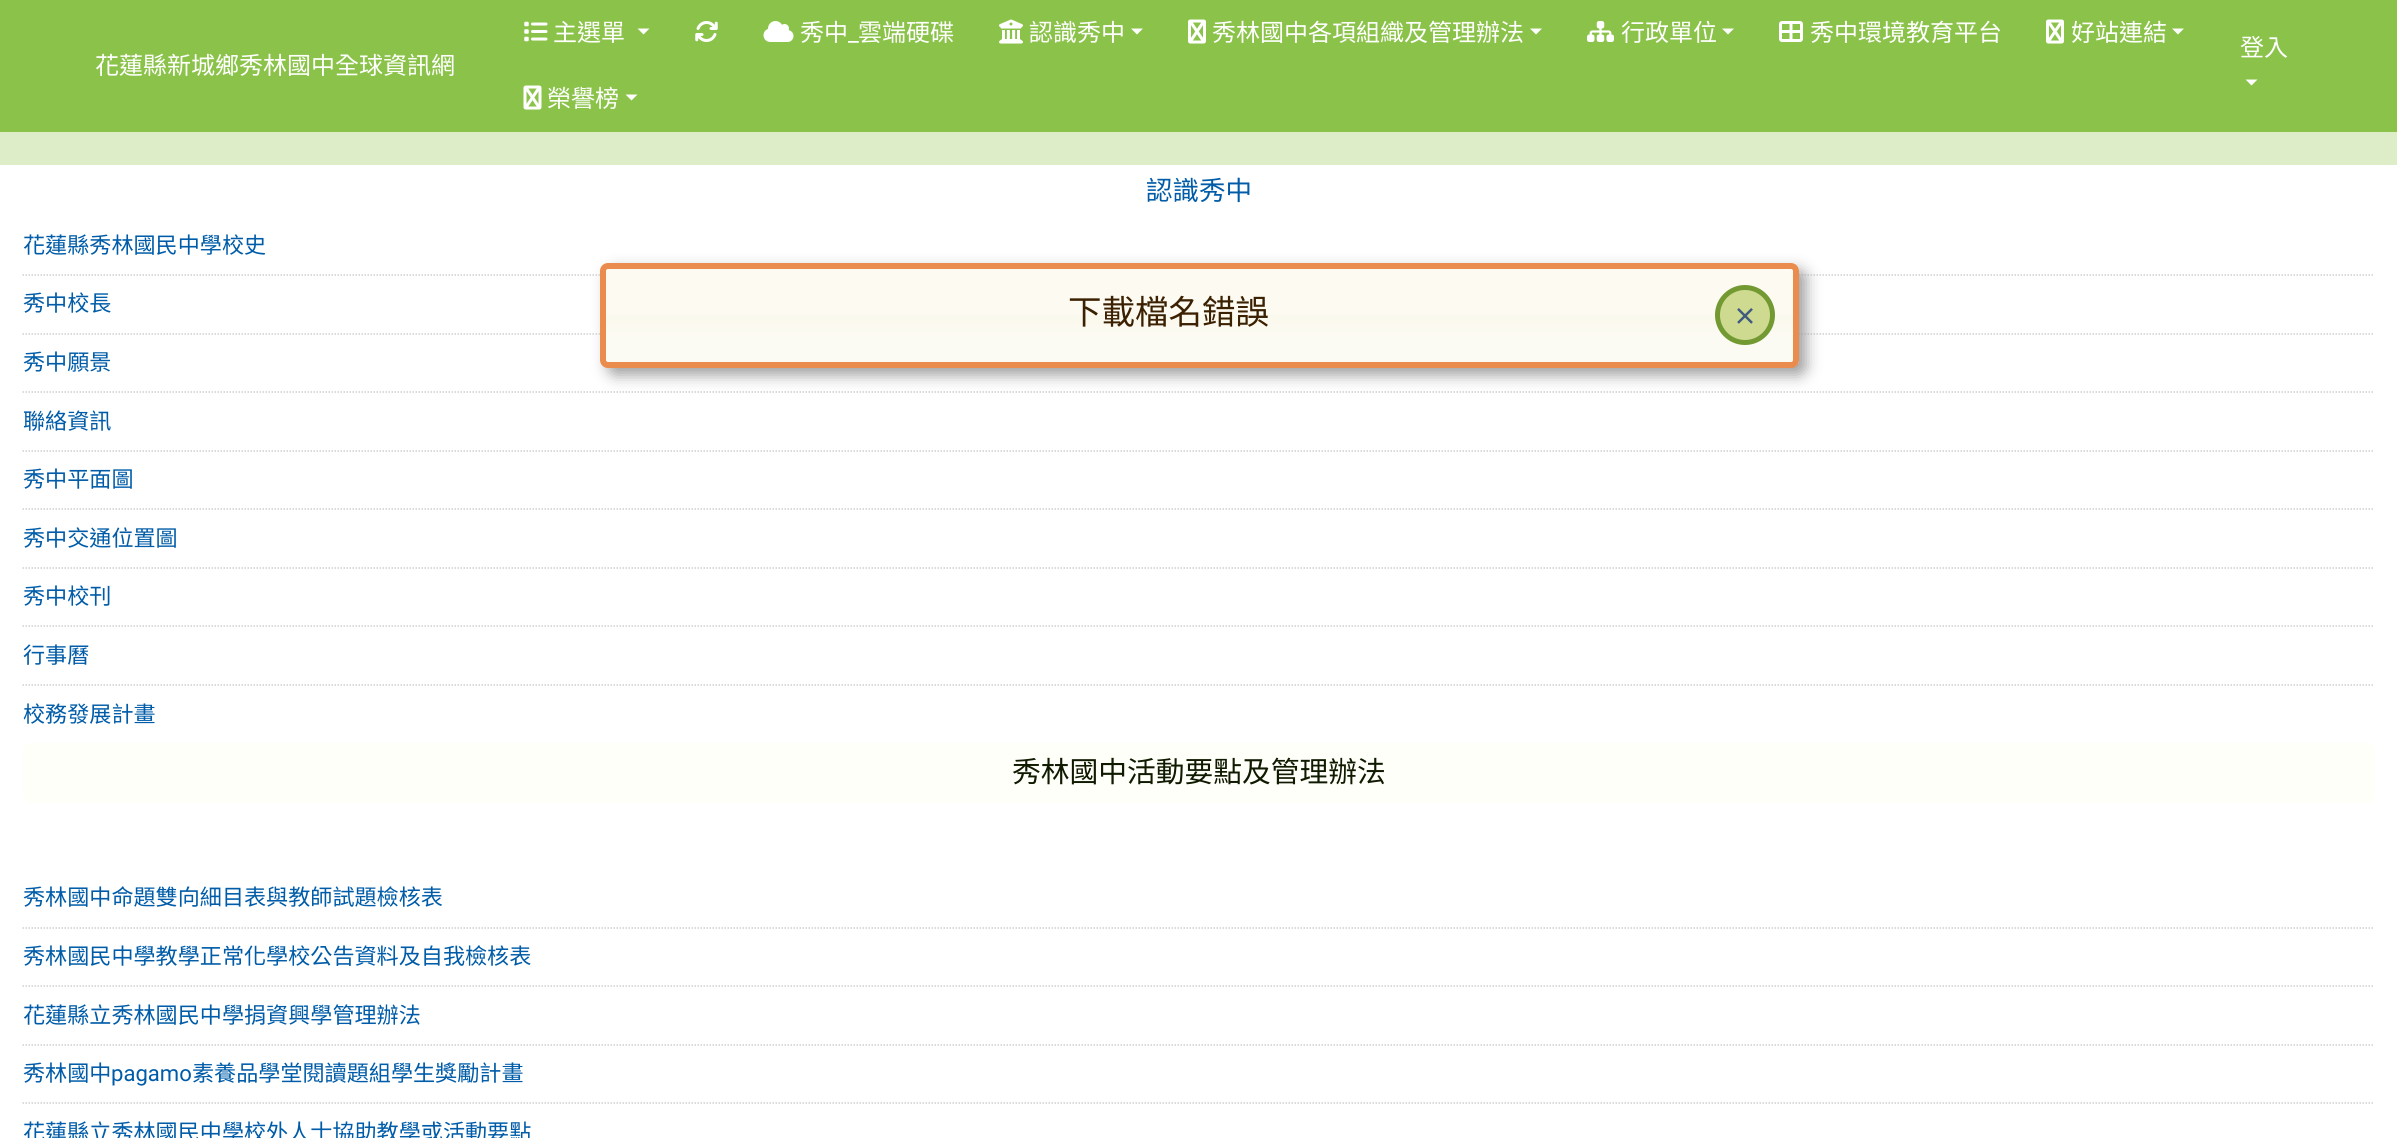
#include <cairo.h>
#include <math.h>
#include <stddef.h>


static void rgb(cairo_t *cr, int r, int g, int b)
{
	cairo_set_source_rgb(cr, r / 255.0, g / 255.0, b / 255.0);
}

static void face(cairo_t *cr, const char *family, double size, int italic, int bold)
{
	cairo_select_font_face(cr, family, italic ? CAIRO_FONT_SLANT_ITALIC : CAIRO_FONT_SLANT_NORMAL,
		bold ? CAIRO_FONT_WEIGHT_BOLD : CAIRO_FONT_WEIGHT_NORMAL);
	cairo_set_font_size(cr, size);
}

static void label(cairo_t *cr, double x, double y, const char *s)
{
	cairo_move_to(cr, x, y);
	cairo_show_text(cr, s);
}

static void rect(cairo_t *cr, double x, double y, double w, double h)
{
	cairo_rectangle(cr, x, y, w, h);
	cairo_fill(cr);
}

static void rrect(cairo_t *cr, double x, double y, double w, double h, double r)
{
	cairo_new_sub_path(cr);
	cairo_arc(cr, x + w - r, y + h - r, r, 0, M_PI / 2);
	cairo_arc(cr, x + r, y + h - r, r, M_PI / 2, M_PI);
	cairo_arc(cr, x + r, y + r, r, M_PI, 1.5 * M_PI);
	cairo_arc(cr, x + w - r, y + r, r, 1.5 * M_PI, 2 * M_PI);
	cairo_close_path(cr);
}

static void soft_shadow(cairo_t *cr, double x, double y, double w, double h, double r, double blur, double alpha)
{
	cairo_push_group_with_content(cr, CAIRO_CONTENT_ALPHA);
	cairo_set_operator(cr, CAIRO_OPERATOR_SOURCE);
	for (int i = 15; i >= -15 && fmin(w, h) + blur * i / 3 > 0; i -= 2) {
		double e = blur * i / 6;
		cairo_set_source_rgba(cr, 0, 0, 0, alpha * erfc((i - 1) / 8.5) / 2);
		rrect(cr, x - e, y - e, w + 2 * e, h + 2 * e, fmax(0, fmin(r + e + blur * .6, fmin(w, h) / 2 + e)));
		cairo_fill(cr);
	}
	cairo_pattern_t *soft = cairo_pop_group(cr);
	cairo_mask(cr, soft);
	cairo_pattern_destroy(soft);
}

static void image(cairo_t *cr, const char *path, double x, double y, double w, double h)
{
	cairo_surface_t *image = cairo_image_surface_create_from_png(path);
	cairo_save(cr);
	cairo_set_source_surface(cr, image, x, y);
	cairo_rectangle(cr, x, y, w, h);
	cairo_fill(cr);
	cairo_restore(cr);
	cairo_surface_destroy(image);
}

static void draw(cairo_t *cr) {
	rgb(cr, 220, 237, 200);
	cairo_paint(cr);
	rgb(cr, 139, 195, 74);
	rect(cr, 0, 0, 2397, 132);
	face(cr, "Noto Sans CJK TC", 24, 0, 0);
	rgb(cr, 255, 255, 255);
	label(cr, 95, 74, "花蓮縣新城鄉秀林國中全球資訊網");
	image(cr, "image0.png", 524, 21, 24, 21);
	label(cr, 553, 41, "主選單");
	cairo_new_path(cr);
	cairo_move_to(cr, 637.5, 28.5);
	cairo_line_to(cr, 649.5, 28.5);
	cairo_line_to(cr, 643.5, 34.5);
	cairo_close_path(cr);
	cairo_fill(cr);
	image(cr, "image1.png", 695, 21, 23, 21);
	image(cr, "image2.png", 763, 21, 31, 21);
	label(cr, 800, 41, "秀中");
	face(cr, "Roboto", 24, 0, 0);
	label(cr, 848, 41, "_");
	face(cr, "Noto Sans CJK TC", 24, 0, 0);
	label(cr, 858, 41, "雲端硬碟");
	image(cr, "image3.png", 999, 19, 24, 25);
	label(cr, 1029, 41, "認識秀中");
	cairo_new_path(cr);
	cairo_move_to(cr, 1131, 28.5);
	cairo_line_to(cr, 1143, 28.5);
	cairo_line_to(cr, 1137, 34.5);
	cairo_close_path(cr);
	cairo_fill(cr);
	image(cr, "image4.png", 1188, 19, 18, 25);
	label(cr, 1212, 41, "秀林國中各項組織及管理辦法");
	cairo_new_path(cr);
	cairo_move_to(cr, 1530, 28.5);
	cairo_line_to(cr, 1542, 28.5);
	cairo_line_to(cr, 1536, 34.5);
	cairo_close_path(cr);
	cairo_fill(cr);
	image(cr, "image5.png", 1587, 21, 27, 21);
	label(cr, 1621, 41, "行政單位");
	cairo_new_path(cr);
	cairo_move_to(cr, 1722, 28.5);
	cairo_line_to(cr, 1734, 28.5);
	cairo_line_to(cr, 1728, 34.5);
	cairo_close_path(cr);
	cairo_fill(cr);
	image(cr, "image6.png", 1779, 21, 24, 21);
	label(cr, 1810, 41, "秀中環境教育平台");
	image(cr, "image4.png", 2046, 19, 18, 25);
	label(cr, 2071, 41, "好站連結");
	cairo_new_path(cr);
	cairo_move_to(cr, 2172, 28.5);
	cairo_line_to(cr, 2184, 28.5);
	cairo_line_to(cr, 2178, 34.5);
	cairo_close_path(cr);
	cairo_fill(cr);
	image(cr, "image7.png", 523, 85, 19, 25);
	label(cr, 547, 107, "榮譽榜");
	cairo_new_path(cr);
	cairo_move_to(cr, 625.5, 94.5);
	cairo_line_to(cr, 637.5, 94.5);
	cairo_line_to(cr, 631.5, 100.5);
	cairo_close_path(cr);
	cairo_fill(cr);
	label(cr, 2240, 56, "登入");
	cairo_new_path(cr);
	cairo_move_to(cr, 2245.5, 79.5);
	cairo_line_to(cr, 2257.5, 79.5);
	cairo_line_to(cr, 2251.5, 85.5);
	cairo_close_path(cr);
	cairo_fill(cr);
	rect(cr, 0, 165, 2397, 973);
	face(cr, "Noto Sans CJK TC", 26.5, 0, 0);
	rgb(cr, 0, 92, 168);
	label(cr, 1146, 200, "認識秀中");
	cairo_new_path(cr);
	cairo_move_to(cr, 22.5, 275);
	cairo_line_to(cr, 2374.5, 275);
	rgb(cr, 207, 207, 207);
	cairo_set_line_width(cr, 1.5);
	cairo_set_dash(cr, (double[]){1.5, 1.5}, 2, 0);
	cairo_stroke(cr);
	face(cr, "Noto Sans CJK TC", 22.1, 0, 0);
	rgb(cr, 0, 92, 168);
	label(cr, 23, 253, "花蓮縣秀林國民中學校史");
	cairo_new_path(cr);
	cairo_move_to(cr, 22.5, 334);
	cairo_line_to(cr, 2374.5, 334);
	rgb(cr, 207, 207, 207);
	cairo_stroke(cr);
	rgb(cr, 0, 92, 168);
	label(cr, 23, 311, "秀中校長");
	cairo_new_path(cr);
	cairo_move_to(cr, 22.5, 392);
	cairo_line_to(cr, 2374.5, 392);
	rgb(cr, 207, 207, 207);
	cairo_stroke(cr);
	rgb(cr, 0, 92, 168);
	label(cr, 23, 370, "秀中願景");
	cairo_new_path(cr);
	cairo_move_to(cr, 22.5, 451);
	cairo_line_to(cr, 2374.5, 451);
	rgb(cr, 207, 207, 207);
	cairo_stroke(cr);
	rgb(cr, 0, 92, 168);
	label(cr, 23, 429, "聯絡資訊");
	cairo_new_path(cr);
	cairo_move_to(cr, 22.5, 509);
	cairo_line_to(cr, 2374.5, 509);
	rgb(cr, 207, 207, 207);
	cairo_stroke(cr);
	rgb(cr, 0, 92, 168);
	label(cr, 23, 487, "秀中平面圖");
	cairo_new_path(cr);
	cairo_move_to(cr, 22.5, 568);
	cairo_line_to(cr, 2374.5, 568);
	rgb(cr, 207, 207, 207);
	cairo_stroke(cr);
	rgb(cr, 0, 92, 168);
	label(cr, 23, 546, "秀中交通位置圖");
	cairo_new_path(cr);
	cairo_move_to(cr, 22.5, 626);
	cairo_line_to(cr, 2374.5, 626);
	rgb(cr, 207, 207, 207);
	cairo_stroke(cr);
	rgb(cr, 0, 92, 168);
	label(cr, 23, 604, "秀中校刊");
	cairo_new_path(cr);
	cairo_move_to(cr, 22.5, 685);
	cairo_line_to(cr, 2374.5, 685);
	rgb(cr, 207, 207, 207);
	cairo_stroke(cr);
	rgb(cr, 0, 92, 168);
	label(cr, 23, 663, "行事曆");
	label(cr, 23, 722, "校務發展計畫");
	rgb(cr, 255, 255, 250);
	rrect(cr, 23, 743, 2352, 60, 8);
	cairo_fill(cr);
	face(cr, "Noto Sans CJK TC", 28.75, 0, 0);
	rgb(cr, 15, 26, 0);
	label(cr, 1012, 782, "秀林國中活動要點及管理辦法");
	cairo_new_path(cr);
	cairo_move_to(cr, 22.5, 928);
	cairo_line_to(cr, 2374.5, 928);
	rgb(cr, 207, 207, 207);
	cairo_stroke(cr);
	face(cr, "Noto Sans CJK TC", 22.1, 0, 0);
	rgb(cr, 0, 92, 168);
	label(cr, 23, 905, "秀林國中命題雙向細目表與教師試題檢核表");
	cairo_new_path(cr);
	cairo_move_to(cr, 22.5, 986);
	cairo_line_to(cr, 2374.5, 986);
	rgb(cr, 207, 207, 207);
	cairo_stroke(cr);
	rgb(cr, 0, 92, 168);
	label(cr, 23, 964, "秀林國民中學教學正常化學校公告資料及自我檢核表");
	cairo_new_path(cr);
	cairo_move_to(cr, 22.5, 1045);
	cairo_line_to(cr, 2374.5, 1045);
	rgb(cr, 207, 207, 207);
	cairo_stroke(cr);
	rgb(cr, 0, 92, 168);
	label(cr, 23, 1023, "花蓮縣立秀林國民中學捐資興學管理辦法");
	cairo_new_path(cr);
	cairo_move_to(cr, 22.5, 1103);
	cairo_line_to(cr, 2374.5, 1103);
	rgb(cr, 207, 207, 207);
	cairo_stroke(cr);
	rgb(cr, 0, 92, 168);
	label(cr, 23, 1081, "秀林國中");
	face(cr, "Roboto", 22.1, 0, 0);
	label(cr, 111, 1081, "pagamo");
	face(cr, "Noto Sans CJK TC", 22.1, 0, 0);
	label(cr, 192, 1081, "素養品學堂閱讀題組學生獎勵計畫");
	label(cr, 23, 1140, "花蓮縣立秀林國民中學校外人士協助教學或活動要點");
	rgb(cr, 158, 158, 158);
	soft_shadow(cr, 608, 270, 1198, 105, 8, 7.5, 1);
	image(cr, "image8.png", 599, 263, 1200, 104);
	rrect(cr, 603, 266, 1193, 99, 5);
	rgb(cr, 233, 140, 77);
	cairo_set_line_width(cr, 6);
	cairo_set_dash(cr, NULL, 0, 0);
	cairo_stroke(cr);
	face(cr, "Noto Sans TC", 33.5, 0, 0);
	rgb(cr, 59, 32, 1);
	label(cr, 1068, 324, "下載檔名錯誤");
	rgb(cr, 206, 218, 143);
	cairo_new_path(cr);
	cairo_arc(cr, 1745, 315, 27.5, 0, 2 * M_PI);
	cairo_fill_preserve(cr);
	rgb(cr, 114, 153, 50);
	cairo_set_line_width(cr, 5);
	cairo_stroke(cr);
	face(cr, "Noto Sans TC", 24, 0, 1);
	rgb(cr, 64, 90, 128);
	label(cr, 1733, 325, "×");
}

int main(void) {
	cairo_surface_t *surface = cairo_image_surface_create(CAIRO_FORMAT_RGB24, 2397, 1138);
	cairo_t *cr = cairo_create(surface);
	cairo_font_options_t *options = cairo_font_options_create();
	cairo_font_options_set_hint_metrics(options, CAIRO_HINT_METRICS_OFF);
	cairo_font_options_set_hint_style(options, CAIRO_HINT_STYLE_NONE);
	cairo_set_font_options(cr, options);
	cairo_set_miter_limit(cr, 4);
	draw(cr);
	cairo_surface_write_to_png(surface, "render.png");
	cairo_font_options_destroy(options);
	cairo_destroy(cr);
	cairo_surface_destroy(surface);
	return 0;
}
